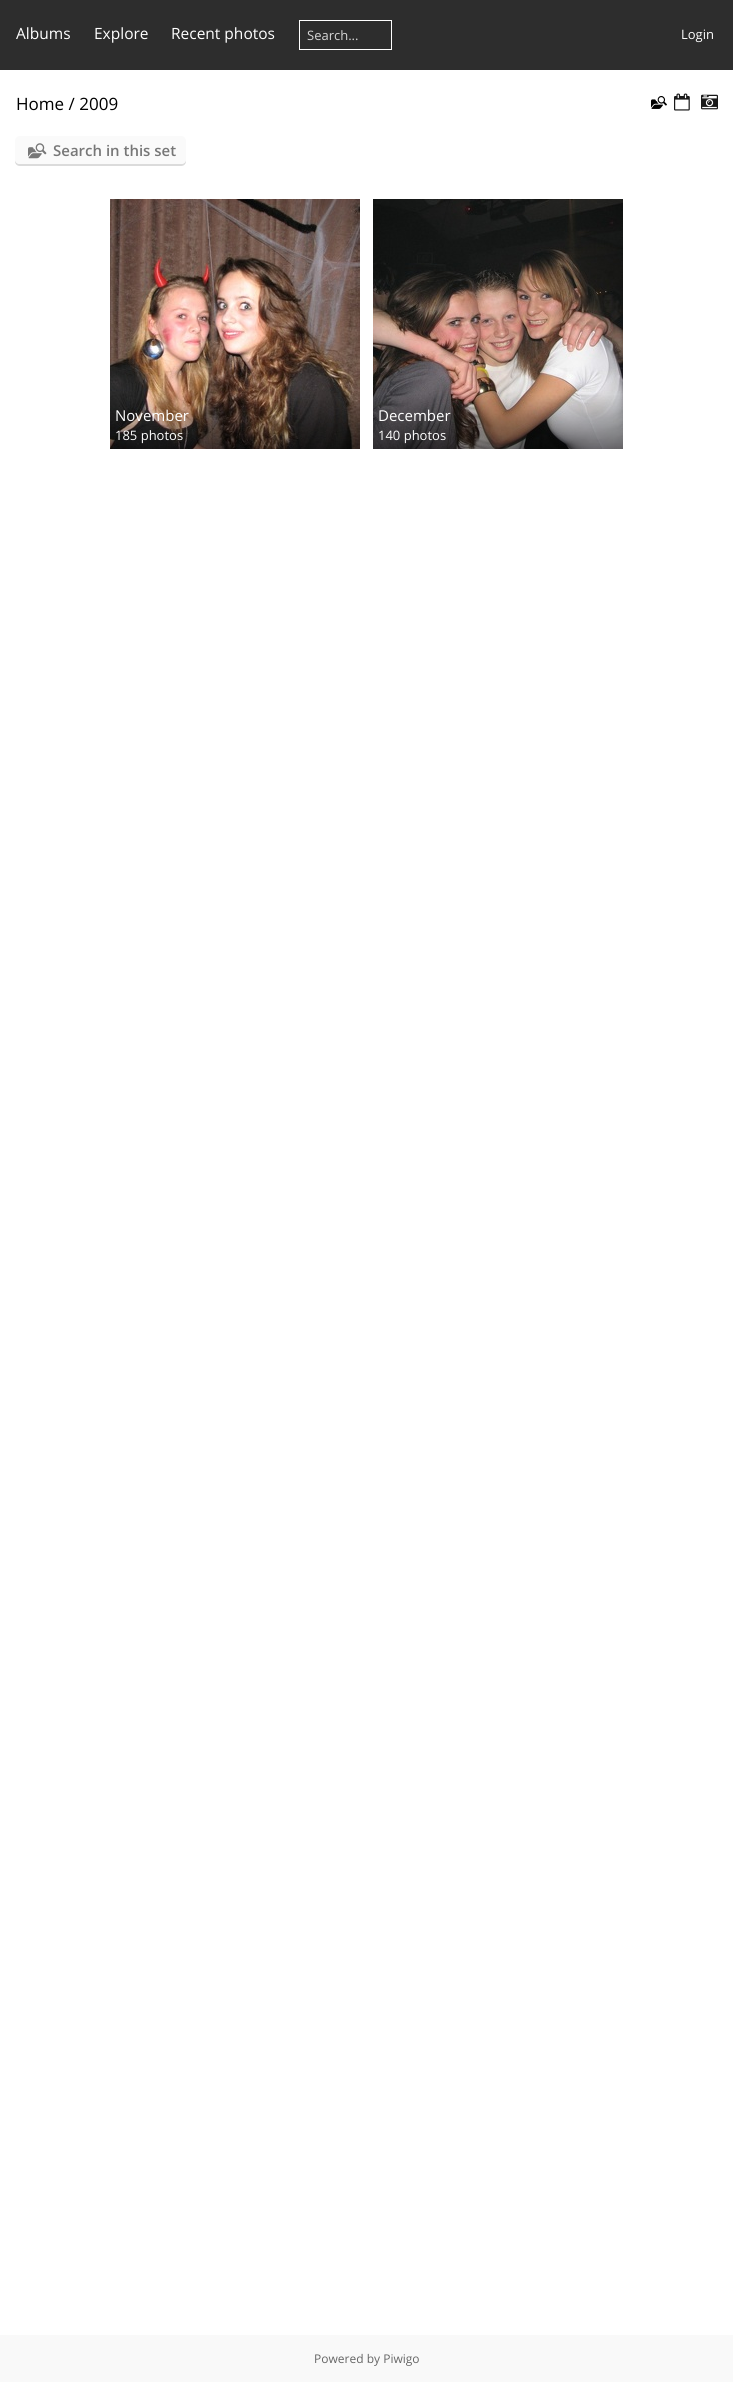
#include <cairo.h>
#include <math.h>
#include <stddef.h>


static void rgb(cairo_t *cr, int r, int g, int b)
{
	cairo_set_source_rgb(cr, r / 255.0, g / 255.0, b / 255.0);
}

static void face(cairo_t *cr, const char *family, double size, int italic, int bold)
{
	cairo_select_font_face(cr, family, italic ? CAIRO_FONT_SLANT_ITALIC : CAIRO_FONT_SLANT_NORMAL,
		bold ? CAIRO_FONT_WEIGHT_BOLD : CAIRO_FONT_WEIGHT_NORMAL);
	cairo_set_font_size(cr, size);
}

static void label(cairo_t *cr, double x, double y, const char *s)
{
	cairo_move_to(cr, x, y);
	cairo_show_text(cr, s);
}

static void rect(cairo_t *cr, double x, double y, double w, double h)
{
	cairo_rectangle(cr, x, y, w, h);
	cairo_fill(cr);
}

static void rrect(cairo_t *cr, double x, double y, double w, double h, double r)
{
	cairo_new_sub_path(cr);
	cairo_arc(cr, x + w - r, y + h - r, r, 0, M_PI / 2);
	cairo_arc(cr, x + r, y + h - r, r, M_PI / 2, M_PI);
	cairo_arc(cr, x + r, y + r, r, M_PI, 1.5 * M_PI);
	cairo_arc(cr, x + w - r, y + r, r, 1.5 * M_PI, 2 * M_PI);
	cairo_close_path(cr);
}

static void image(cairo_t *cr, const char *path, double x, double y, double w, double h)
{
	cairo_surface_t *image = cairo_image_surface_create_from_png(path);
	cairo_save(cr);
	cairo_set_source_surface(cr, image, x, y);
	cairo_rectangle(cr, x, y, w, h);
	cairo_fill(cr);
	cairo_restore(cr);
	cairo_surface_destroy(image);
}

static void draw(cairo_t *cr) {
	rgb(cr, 255, 255, 255);
	cairo_paint(cr);
	rgb(cr, 45, 45, 45);
	rect(cr, 0, 0, 733, 70);
	face(cr, "Open Sans", 15.5, 0, 0);
	rgb(cr, 255, 255, 255);
	label(cr, 16, 39, "Albums");
	label(cr, 94, 39, "Explore");
	label(cr, 171, 39, "Recent photos");
	cairo_rectangle(cr, 299.5, 20.5, 92, 29);
	cairo_set_line_width(cr, 1);
	cairo_stroke(cr);
	face(cr, "Open Sans", 13, 0, 0);
	rgb(cr, 214, 214, 214);
	label(cr, 307, 40, "Search...");
	rgb(cr, 255, 255, 255);
	label(cr, 681, 39, "Login");
	face(cr, "Open Sans", 17, 0, 0);
	rgb(cr, 0, 0, 0);
	label(cr, 16, 110, "Home / 2009");
	image(cr, "image0.png", 651, 96, 16, 13);
	image(cr, "image1.png", 674, 93, 16, 18);
	image(cr, "image2.png", 701, 94, 17, 16);
	rgb(cr, 219, 219, 219);
	cairo_new_path(cr);
	cairo_move_to(cr, 15, 159);
	cairo_line_to(cr, 15, 161);
	cairo_curve_to(cr, 15, 164, 17, 166, 20, 166);
	cairo_line_to(cr, 181, 166);
	cairo_curve_to(cr, 184, 166, 186, 164, 186, 161);
	cairo_line_to(cr, 186, 159);
	cairo_curve_to(cr, 186, 162, 184, 164, 181, 164);
	cairo_line_to(cr, 20, 164);
	cairo_curve_to(cr, 17, 164, 15, 162, 15, 159);
	cairo_close_path(cr);
	cairo_fill(cr);
	rgb(cr, 250, 250, 250);
	rrect(cr, 15, 136, 171, 28, 5);
	cairo_fill(cr);
	image(cr, "image3.png", 28, 143, 19, 16);
	face(cr, "Open Sans SemiBold", 15, 0, 0);
	rgb(cr, 119, 119, 119);
	label(cr, 53, 156, "Search in this set");
	image(cr, "image4.png", 110, 199, 250, 250);
	face(cr, "Open Sans", 15, 0, 0);
	rgb(cr, 255, 255, 255);
	label(cr, 115, 421, "November");
	face(cr, "Open Sans", 13, 0, 0);
	label(cr, 115, 440, "185 photos");
	image(cr, "image5.png", 373, 199, 250, 250);
	face(cr, "Open Sans", 15, 0, 0);
	label(cr, 378, 421, "December");
	face(cr, "Open Sans", 13, 0, 0);
	label(cr, 378, 440, "140 photos");
	rgb(cr, 249, 249, 249);
	rect(cr, 0, 2335, 733, 47);
	face(cr, "Open Sans", 12, 0, 0);
	rgb(cr, 102, 102, 102);
	label(cr, 314, 2363, "Powered by Piwigo");
}

int main(void) {
	cairo_surface_t *surface = cairo_image_surface_create(CAIRO_FORMAT_RGB24, 733, 2382);
	cairo_t *cr = cairo_create(surface);
	cairo_font_options_t *options = cairo_font_options_create();
	cairo_font_options_set_hint_metrics(options, CAIRO_HINT_METRICS_OFF);
	cairo_font_options_set_hint_style(options, CAIRO_HINT_STYLE_NONE);
	cairo_set_font_options(cr, options);
	cairo_set_miter_limit(cr, 4);
	draw(cr);
	cairo_surface_write_to_png(surface, "render.png");
	cairo_font_options_destroy(options);
	cairo_destroy(cr);
	cairo_surface_destroy(surface);
	return 0;
}
